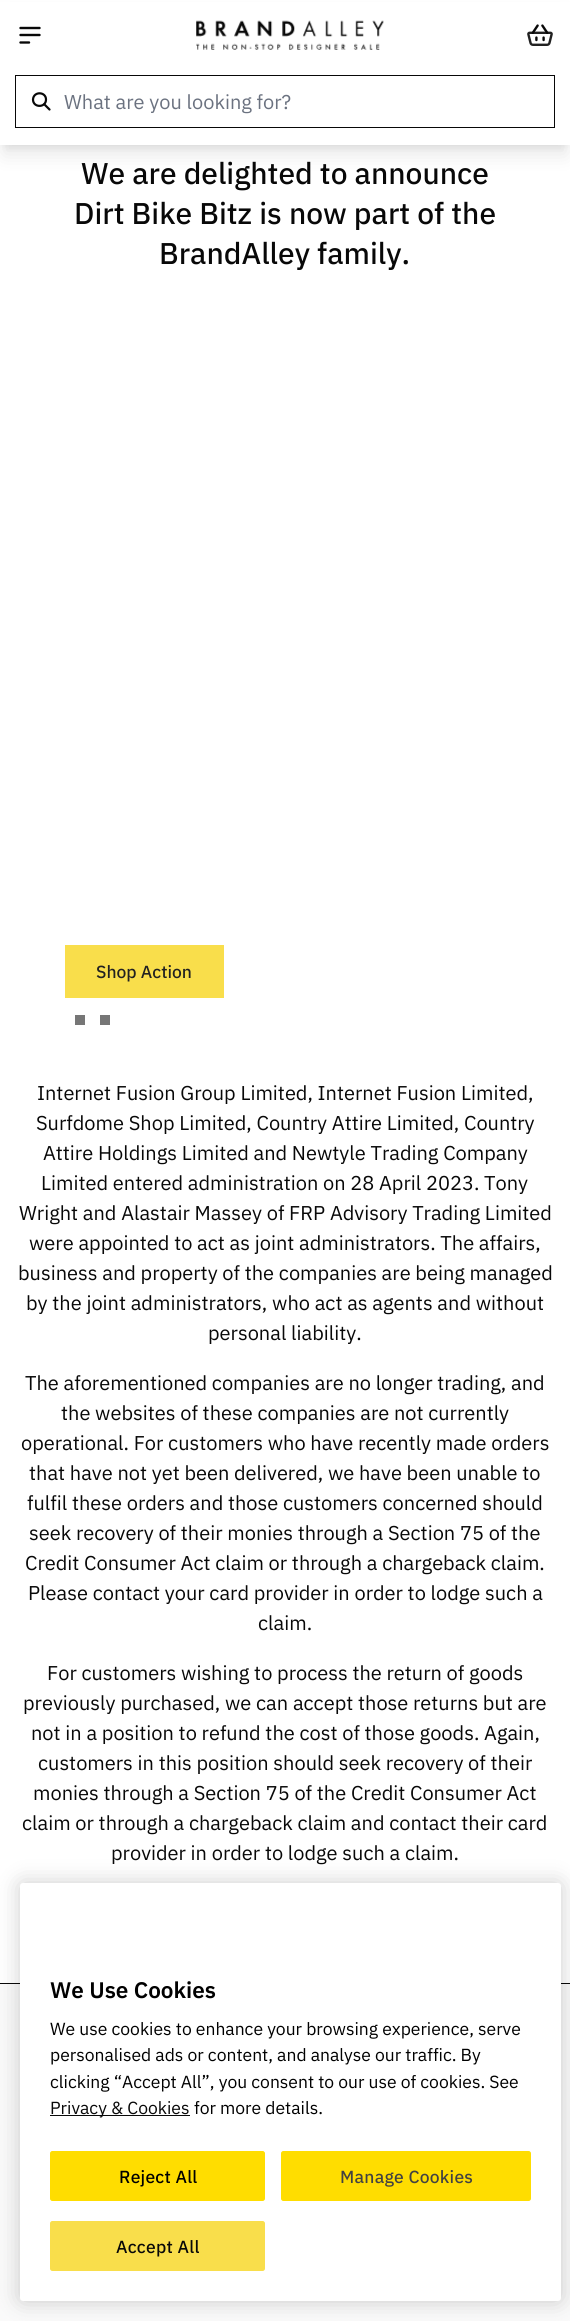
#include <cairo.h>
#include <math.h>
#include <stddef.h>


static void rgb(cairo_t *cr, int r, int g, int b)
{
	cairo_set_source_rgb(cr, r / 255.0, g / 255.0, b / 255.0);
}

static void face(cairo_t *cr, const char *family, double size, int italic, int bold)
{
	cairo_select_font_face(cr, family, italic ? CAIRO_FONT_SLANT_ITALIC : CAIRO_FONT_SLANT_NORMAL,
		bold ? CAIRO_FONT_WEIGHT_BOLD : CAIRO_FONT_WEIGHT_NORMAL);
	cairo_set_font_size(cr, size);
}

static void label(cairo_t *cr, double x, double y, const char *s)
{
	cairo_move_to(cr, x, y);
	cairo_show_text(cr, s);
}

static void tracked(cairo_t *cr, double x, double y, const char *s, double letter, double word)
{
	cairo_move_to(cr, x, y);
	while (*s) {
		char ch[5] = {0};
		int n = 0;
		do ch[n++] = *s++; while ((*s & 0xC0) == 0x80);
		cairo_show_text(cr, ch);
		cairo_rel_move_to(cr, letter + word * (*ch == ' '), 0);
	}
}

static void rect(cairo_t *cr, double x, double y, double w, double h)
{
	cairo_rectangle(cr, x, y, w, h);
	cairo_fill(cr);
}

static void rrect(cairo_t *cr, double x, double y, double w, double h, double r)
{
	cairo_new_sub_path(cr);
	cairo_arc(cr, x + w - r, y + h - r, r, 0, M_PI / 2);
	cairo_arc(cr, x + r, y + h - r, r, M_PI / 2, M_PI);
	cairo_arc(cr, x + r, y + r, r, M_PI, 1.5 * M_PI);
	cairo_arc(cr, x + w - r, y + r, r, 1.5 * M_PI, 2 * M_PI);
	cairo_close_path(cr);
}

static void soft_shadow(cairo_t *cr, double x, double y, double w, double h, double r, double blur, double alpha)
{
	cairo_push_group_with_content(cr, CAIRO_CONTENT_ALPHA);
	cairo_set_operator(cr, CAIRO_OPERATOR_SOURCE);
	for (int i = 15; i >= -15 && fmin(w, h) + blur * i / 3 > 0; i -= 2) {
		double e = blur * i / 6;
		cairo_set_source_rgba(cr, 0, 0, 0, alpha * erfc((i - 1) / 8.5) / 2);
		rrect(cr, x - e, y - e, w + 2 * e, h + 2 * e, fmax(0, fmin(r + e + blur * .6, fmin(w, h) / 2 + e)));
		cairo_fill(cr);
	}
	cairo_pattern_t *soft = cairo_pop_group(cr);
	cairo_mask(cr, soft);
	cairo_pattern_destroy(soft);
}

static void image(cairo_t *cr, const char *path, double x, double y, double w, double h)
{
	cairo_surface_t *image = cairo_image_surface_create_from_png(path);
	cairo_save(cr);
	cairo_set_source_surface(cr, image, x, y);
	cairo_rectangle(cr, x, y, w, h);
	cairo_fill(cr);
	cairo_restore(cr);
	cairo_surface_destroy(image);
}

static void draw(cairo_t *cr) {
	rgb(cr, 255, 255, 255);
	cairo_paint(cr);
	rgb(cr, 0, 0, 0);
	soft_shadow(cr, 5, 10, 560, 135, 0, 4, 0.1);
	soft_shadow(cr, 4, 16, 562, 138, 0, 9.5, 0.1);
	rgb(cr, 255, 255, 255);
	rect(cr, 0, 2, 570, 143);
	cairo_new_path(cr);
	cairo_move_to(cr, 20.5, 42.5);
	cairo_line_to(cr, 29, 42.5);
	cairo_move_to(cr, 20.5, 28);
	cairo_line_to(cr, 39.5, 28);
	cairo_close_path(cr);
	cairo_move_to(cr, 20.5, 35);
	cairo_line_to(cr, 39.5, 35);
	cairo_close_path(cr);
	rgb(cr, 8, 8, 8);
	cairo_set_line_width(cr, 2.4);
	cairo_set_line_cap(cr, CAIRO_LINE_CAP_ROUND);
	cairo_set_line_join(cr, CAIRO_LINE_JOIN_ROUND);
	cairo_stroke(cr);
	image(cr, "image0.png", 196, 20, 188, 30);
	image(cr, "image1.png", 527, 24, 26, 22);
	cairo_rectangle(cr, 15.5, 75.5, 539, 52);
	cairo_set_line_width(cr, 1);
	cairo_set_line_cap(cr, CAIRO_LINE_CAP_BUTT);
	cairo_set_line_join(cr, CAIRO_LINE_JOIN_MITER);
	cairo_stroke(cr);
	cairo_new_path(cr);
	cairo_move_to(cr, 49.5, 109.5);
	cairo_line_to(cr, 44, 104);
	cairo_move_to(cr, 46, 99.5);
	cairo_curve_to(cr, 46, 108, 33, 108, 33, 99.5);
	cairo_curve_to(cr, 33.5, 91, 46, 91.5, 46, 99.5);
	cairo_close_path(cr);
	cairo_set_line_width(cr, 2.2);
	cairo_set_line_cap(cr, CAIRO_LINE_CAP_ROUND);
	cairo_set_line_join(cr, CAIRO_LINE_JOIN_ROUND);
	cairo_stroke(cr);
	face(cr, "Anuphan", 20, 0, 0);
	rgb(cr, 107, 114, 128);
	label(cr, 64, 109, "What are you looking for?");
	face(cr, "Anuphan Medium", 30, 0, 0);
	rgb(cr, 8, 8, 8);
	label(cr, 81, 184, "We are delighted to announce");
	label(cr, 74, 224, "Dirt Bike Bitz is now part of the");
	label(cr, 159, 264, "BrandAlley family.");
	rgb(cr, 249, 222, 75);
	rect(cr, 65, 945, 159, 53);
	face(cr, "Anuphan Medium", 17.5, 0, 0);
	rgb(cr, 33, 33, 33);
	label(cr, 96, 978, "Shop Action");
	rgb(cr, 118, 118, 118);
	rect(cr, 75, 1015, 10, 10);
	rect(cr, 100, 1015, 10, 10);
	face(cr, "Anuphan", 20, 0, 0);
	rgb(cr, 8, 8, 8);
	label(cr, 37, 1100, "Internet Fusion Group Limited, Internet Fusion Limited,");
	label(cr, 36, 1130, "Surfdome Shop Limited, Country Attire Limited, Country");
	label(cr, 43, 1160, "Attire Holdings Limited and Newtyle Trading Company");
	label(cr, 41, 1190, "Limited entered administration on 28 April 2023. Tony");
	label(cr, 19, 1220, "Wright and Alastair Massey of FRP Advisory Trading Limited");
	label(cr, 29, 1250, "were appointed to act as joint administrators. The affairs,");
	label(cr, 18, 1280, "business and property of the companies are being managed");
	label(cr, 26, 1310, "by the joint administrators, who act as agents and without");
	label(cr, 208, 1340, "personal liability.");
	label(cr, 25, 1390, "The aforementioned companies are no longer trading, and");
	label(cr, 61, 1420, "the websites of these companies are not currently");
	label(cr, 21, 1450, "operational. For customers who have recently made orders");
	label(cr, 29, 1480, "that have not yet been delivered, we have been unable to");
	label(cr, 27, 1510, "fulfil these orders and those customers concerned should");
	label(cr, 29, 1540, "seek recovery of their monies through a Section 75 of the");
	label(cr, 25, 1570, "Credit Consumer Act claim or through a chargeback claim.");
	label(cr, 28, 1600, "Please contact your card provider in order to lodge such a");
	label(cr, 258, 1630, "claim.");
	label(cr, 47, 1680, "For customers wishing to process the return of goods");
	label(cr, 23, 1710, "previously purchased, we can accept those returns but are");
	label(cr, 31, 1740, "not in a position to refund the cost of those goods. Again,");
	label(cr, 38, 1770, "customers in this position should seek recovery of their");
	label(cr, 33, 1800, "monies through a Section 75 of the Credit Consumer Act");
	label(cr, 22, 1830, "claim or through a chargeback claim and contact their card");
	label(cr, 111, 1860, "provider in order to lodge such a claim.");
	rgb(cr, 250, 250, 250);
	rect(cr, 0, 1984, 570, 337);
	rgb(cr, 8, 8, 8);
	rect(cr, 0, 1983, 570, 1);
	rgb(cr, 0, 0, 0);
	soft_shadow(cr, 20, 1883, 541, 418, 3, 11, 0.2);
	rgb(cr, 255, 255, 255);
	rrect(cr, 20, 1883, 541, 418, 3);
	cairo_fill(cr);
	face(cr, "Anuphan SemiBold", 22.5, 0, 0);
	rgb(cr, 0, 0, 0);
	label(cr, 50, 1998, "We Use Cookies");
	face(cr, "Anuphan", 17.5, 0, 0);
	label(cr, 50, 2035, "We use cookies to enhance your browsing experience, serve");
	label(cr, 50, 2061, "personalised ads or content, and analyse our traffic. By");
	label(cr, 50, 2088, "clicking “Accept All”, you consent to our use of cookies. See");
	rgb(cr, 8, 8, 8);
	rect(cr, 50, 2115, 140, 1);
	label(cr, 50, 2114, "Privacy & Cookies");
	rgb(cr, 0, 0, 0);
	label(cr, 194, 2114, "for more details.");
	rgb(cr, 255, 221, 0);
	rrect(cr, 50.5, 2151.5, 214, 49, 2);
	cairo_fill_preserve(cr);
	cairo_set_line_width(cr, 1);
	cairo_set_line_cap(cr, CAIRO_LINE_CAP_BUTT);
	cairo_set_line_join(cr, CAIRO_LINE_JOIN_MITER);
	cairo_stroke(cr);
	face(cr, "Anuphan Medium", 17.5, 0, 0);
	rgb(cr, 0, 0, 0);
	tracked(cr, 119, 2183, "Reject All", 0.25, 0);
	rgb(cr, 249, 222, 75);
	rrect(cr, 50.5, 2221.5, 214, 49, 2);
	cairo_fill_preserve(cr);
	cairo_stroke(cr);
	rgb(cr, 8, 8, 8);
	tracked(cr, 116, 2253, "Accept All", 0.25, 0);
	rgb(cr, 255, 221, 0);
	rrect(cr, 281.5, 2151.5, 249, 49, 2);
	cairo_fill_preserve(cr);
	cairo_stroke(cr);
	rgb(cr, 66, 66, 66);
	tracked(cr, 340, 2183, "Manage Cookies", 0.25, 0);
}

int main(void) {
	cairo_surface_t *surface = cairo_image_surface_create(CAIRO_FORMAT_RGB24, 570, 2321);
	cairo_t *cr = cairo_create(surface);
	cairo_font_options_t *options = cairo_font_options_create();
	cairo_font_options_set_hint_metrics(options, CAIRO_HINT_METRICS_OFF);
	cairo_font_options_set_hint_style(options, CAIRO_HINT_STYLE_NONE);
	cairo_set_font_options(cr, options);
	cairo_set_miter_limit(cr, 4);
	draw(cr);
	cairo_surface_write_to_png(surface, "render.png");
	cairo_font_options_destroy(options);
	cairo_destroy(cr);
	cairo_surface_destroy(surface);
	return 0;
}
